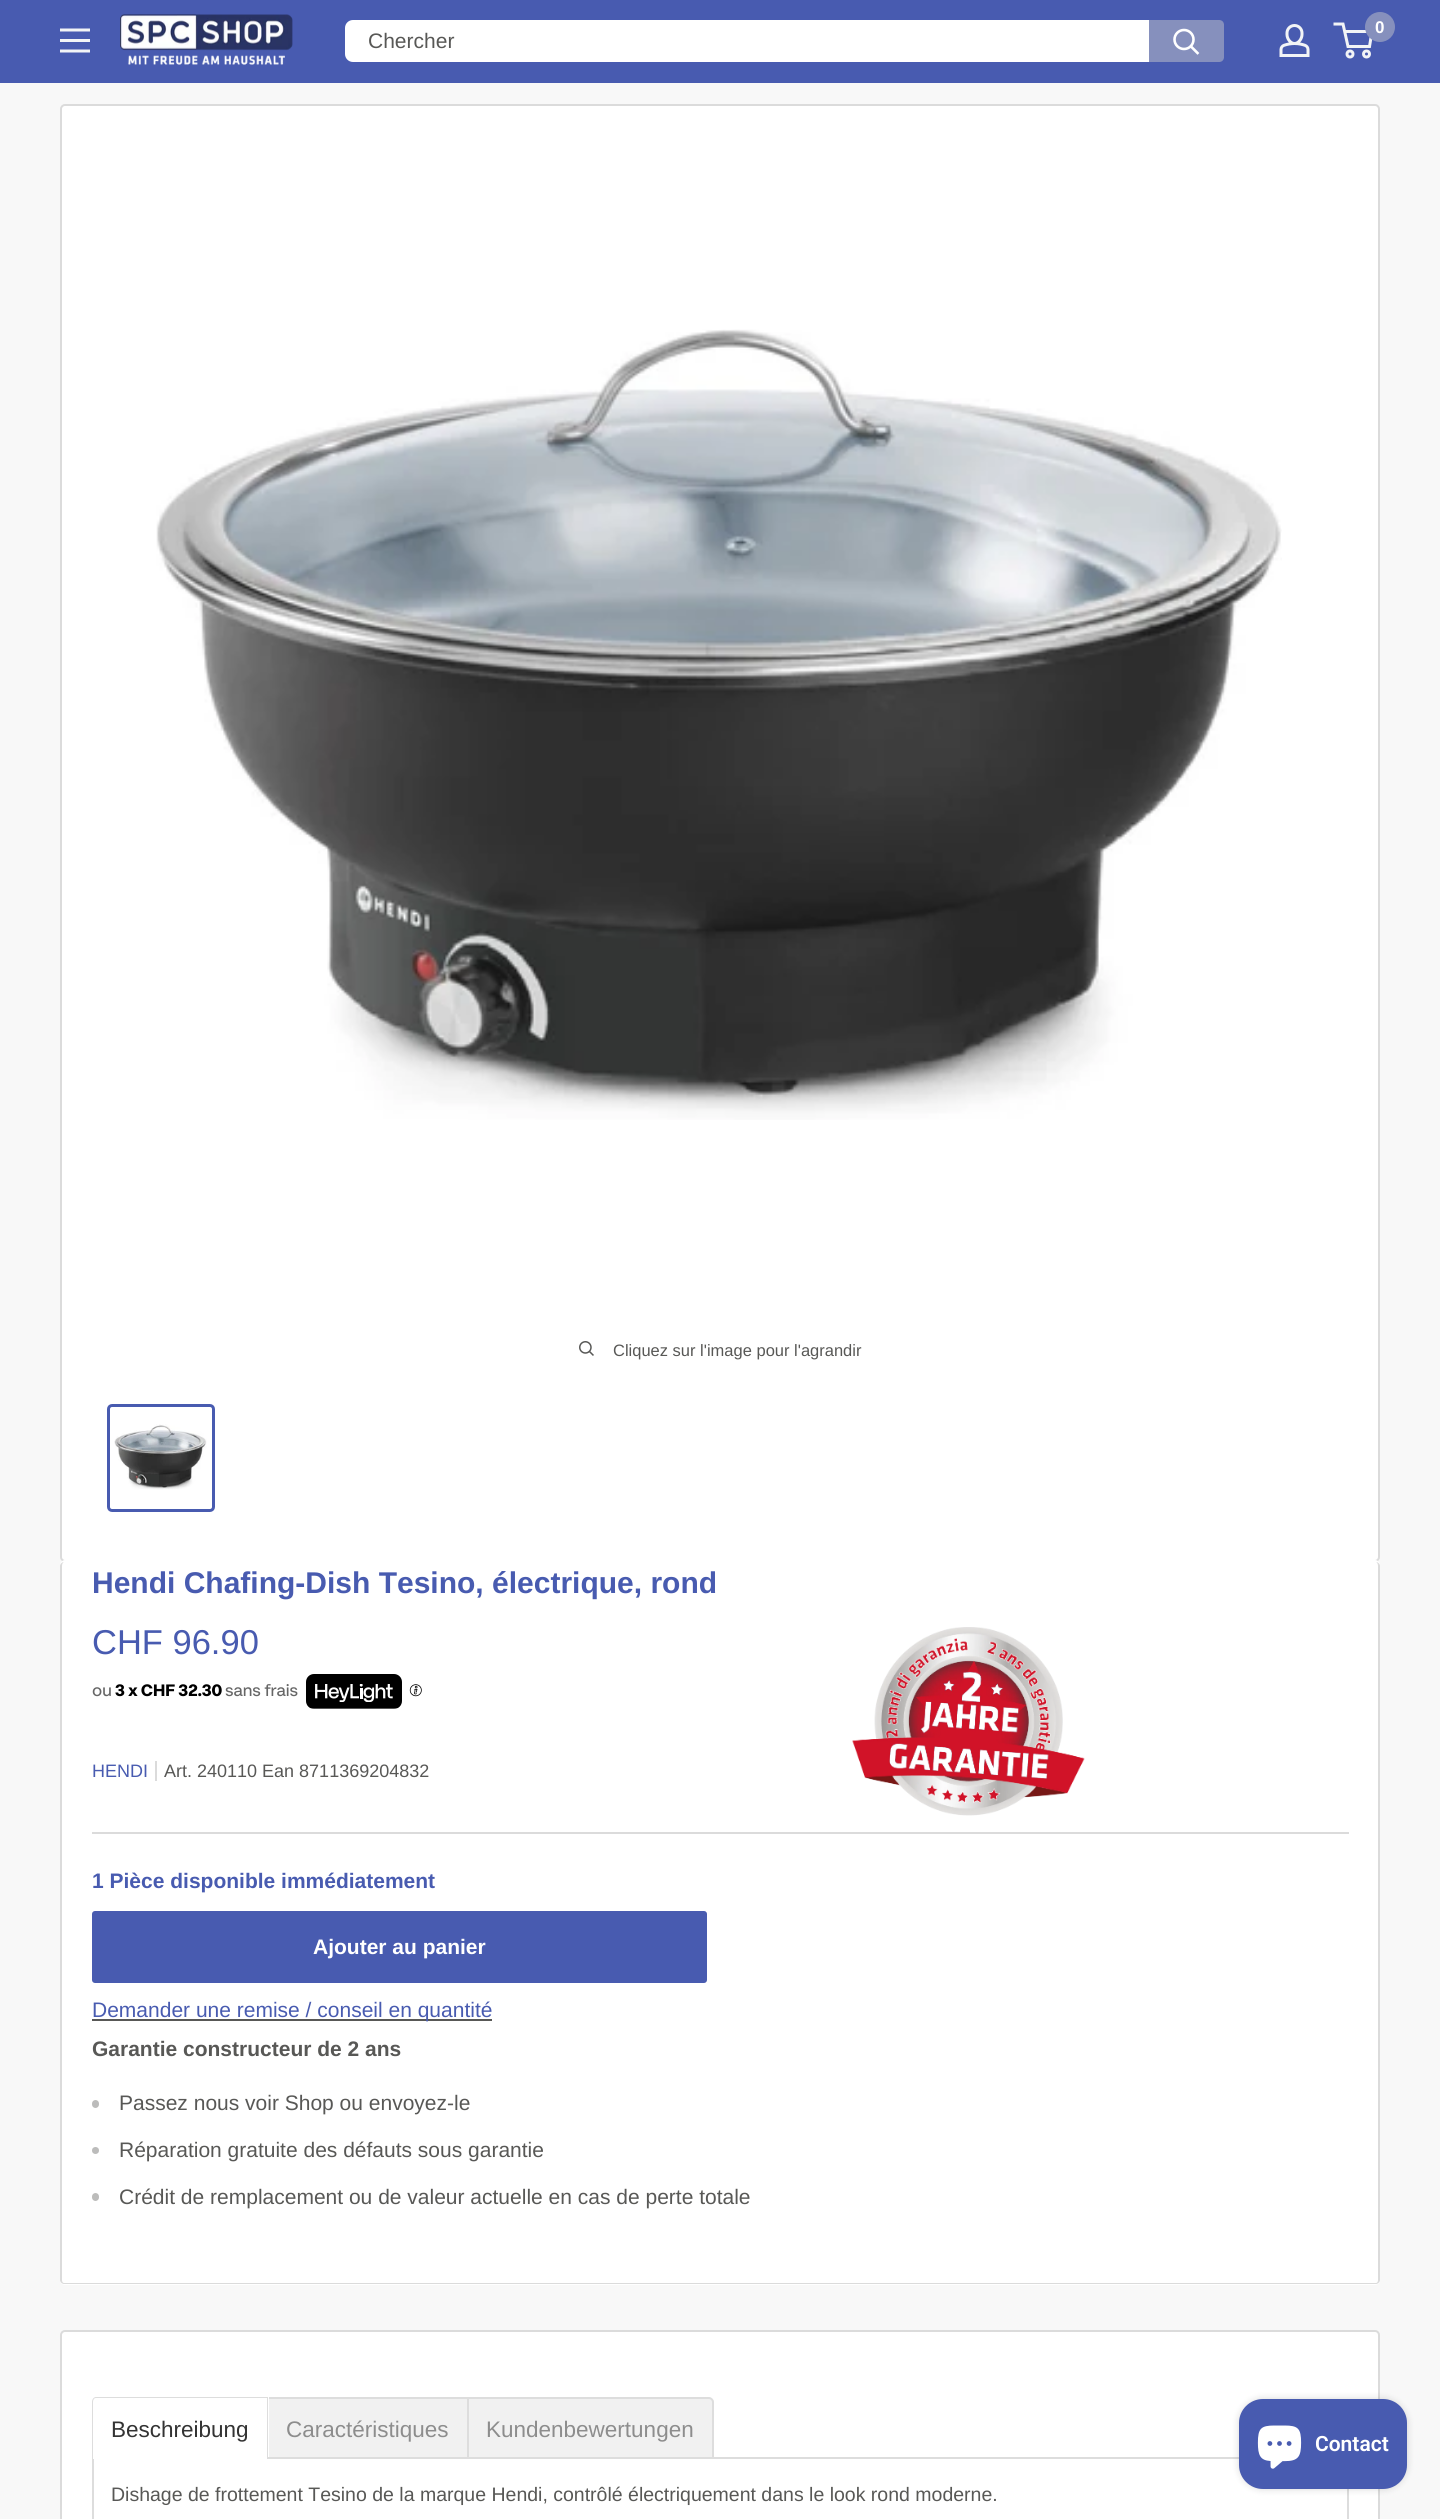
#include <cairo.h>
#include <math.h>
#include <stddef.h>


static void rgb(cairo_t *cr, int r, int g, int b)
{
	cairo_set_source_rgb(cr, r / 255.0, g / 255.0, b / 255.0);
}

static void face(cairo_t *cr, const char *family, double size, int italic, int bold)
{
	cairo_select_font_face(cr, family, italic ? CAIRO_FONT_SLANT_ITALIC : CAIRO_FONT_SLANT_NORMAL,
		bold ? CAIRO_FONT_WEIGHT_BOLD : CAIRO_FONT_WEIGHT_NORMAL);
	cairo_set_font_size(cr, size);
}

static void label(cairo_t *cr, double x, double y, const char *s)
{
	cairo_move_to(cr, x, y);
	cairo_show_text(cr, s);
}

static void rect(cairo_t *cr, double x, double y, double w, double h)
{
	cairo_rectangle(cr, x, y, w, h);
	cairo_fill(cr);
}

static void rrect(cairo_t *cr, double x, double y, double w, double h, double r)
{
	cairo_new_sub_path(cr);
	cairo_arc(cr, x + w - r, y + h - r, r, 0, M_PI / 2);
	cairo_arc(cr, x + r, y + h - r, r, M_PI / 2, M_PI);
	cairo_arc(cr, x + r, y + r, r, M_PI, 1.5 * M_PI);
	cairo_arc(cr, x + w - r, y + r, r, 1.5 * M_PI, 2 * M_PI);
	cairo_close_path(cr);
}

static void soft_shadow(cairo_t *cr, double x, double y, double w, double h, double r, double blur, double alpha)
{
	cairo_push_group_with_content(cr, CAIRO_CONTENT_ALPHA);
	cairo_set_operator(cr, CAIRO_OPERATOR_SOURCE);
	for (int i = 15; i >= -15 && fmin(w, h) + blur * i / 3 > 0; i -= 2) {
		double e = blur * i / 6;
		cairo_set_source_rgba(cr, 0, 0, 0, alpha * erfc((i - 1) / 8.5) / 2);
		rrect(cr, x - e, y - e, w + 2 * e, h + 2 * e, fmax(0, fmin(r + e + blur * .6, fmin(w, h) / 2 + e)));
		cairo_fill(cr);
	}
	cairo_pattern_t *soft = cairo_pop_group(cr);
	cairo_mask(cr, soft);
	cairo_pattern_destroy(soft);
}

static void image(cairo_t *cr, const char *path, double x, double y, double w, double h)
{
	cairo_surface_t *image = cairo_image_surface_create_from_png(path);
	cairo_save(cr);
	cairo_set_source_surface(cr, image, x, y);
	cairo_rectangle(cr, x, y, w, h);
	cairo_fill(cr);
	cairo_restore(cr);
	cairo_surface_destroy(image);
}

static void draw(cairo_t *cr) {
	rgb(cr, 248, 248, 248);
	cairo_paint(cr);
	rgb(cr, 72, 91, 176);
	rect(cr, 0, 0, 1440, 83);
	image(cr, "image0.png", 60, 28, 30, 25);
	image(cr, "image1.png", 120, 14, 173, 51);
	rgb(cr, 255, 255, 255);
	rrect(cr, 345, 20, 879, 42, 8);
	cairo_fill(cr);
	face(cr, "Liberation Sans", 21, 0, 0);
	rgb(cr, 88, 88, 86);
	label(cr, 368, 48, "Chercher");
	rgb(cr, 134, 144, 189);
	cairo_new_path(cr);
	cairo_move_to(cr, 1149, 20);
	cairo_line_to(cr, 1219, 20);
	cairo_curve_to(cr, 1222, 20, 1224, 22, 1224, 25);
	cairo_line_to(cr, 1224, 57);
	cairo_curve_to(cr, 1224, 60, 1222, 62, 1219, 62);
	cairo_line_to(cr, 1149, 62);
	cairo_close_path(cr);
	cairo_fill(cr);
	cairo_new_path(cr);
	cairo_move_to(cr, 1197.5, 53);
	cairo_line_to(cr, 1191, 46.5);
	rgb(cr, 255, 255, 255);
	cairo_set_line_width(cr, 2.6);
	cairo_set_line_cap(cr, CAIRO_LINE_CAP_SQUARE);
	cairo_stroke(cr);
	cairo_arc(cr, 1184, 39.5, 9.5, 0, 2 * M_PI);
	cairo_set_line_cap(cr, CAIRO_LINE_CAP_BUTT);
	cairo_stroke(cr);
	image(cr, "image2.png", 1279, 24, 31, 33);
	cairo_arc(cr, 1350, 54, 3, 0, 2 * M_PI);
	rgb(cr, 242, 244, 246);
	cairo_set_line_width(cr, 3);
	cairo_stroke(cr);
	cairo_arc(cr, 1366.5, 54, 3, 0, 2 * M_PI);
	cairo_stroke(cr);
	cairo_new_path(cr);
	cairo_move_to(cr, 1344.5, 31.5);
	cairo_line_to(cr, 1372, 31.5);
	cairo_line_to(cr, 1369.5, 46.5);
	cairo_line_to(cr, 1348, 46.5);
	cairo_line_to(cr, 1343, 24);
	cairo_line_to(cr, 1333.5, 24);
	cairo_stroke(cr);
	rgb(cr, 134, 144, 189);
	cairo_arc(cr, 1380, 27, 15, 0, 2 * M_PI);
	cairo_fill(cr);
	face(cr, "Liberation Sans", 17, 0, 1);
	rgb(cr, 255, 255, 255);
	label(cr, 1375, 33, "0");
	rrect(cr, 61, 105, 1318, 1456, 4);
	cairo_fill_preserve(cr);
	rgb(cr, 219, 219, 219);
	cairo_set_line_width(cr, 2);
	cairo_stroke(cr);
	image(cr, "image3.png", 156, 329, 1126, 791);
	image(cr, "image4.png", 579, 1341, 15, 15);
	face(cr, "Liberation Sans", 16.5, 0, 0);
	rgb(cr, 88, 88, 86);
	label(cr, 613, 1356, "Cliquez sur l'image pour l'agrandir");
	rrect(cr, 108.5, 1405.5, 105, 105, 3.5);
	rgb(cr, 72, 91, 176);
	cairo_set_line_width(cr, 3);
	cairo_stroke(cr);
	image(cr, "image5.png", 114, 1424, 93, 66);
	rgb(cr, 255, 255, 255);
	cairo_new_path(cr);
	cairo_move_to(cr, 65, 1560);
	cairo_curve_to(cr, 62, 1560, 60, 1563, 60, 1566);
	cairo_curve_to(cr, 60, 1564, 62, 1562, 64, 1562);
	cairo_line_to(cr, 1376, 1562);
	cairo_curve_to(cr, 1378, 1562, 1380, 1564, 1380, 1566);
	cairo_curve_to(cr, 1380, 1563, 1378, 1560, 1375, 1560);
	cairo_close_path(cr);
	cairo_fill(cr);
	rrect(cr, 60, 1562, 1320, 723, 5);
	cairo_fill(cr);
	rgb(cr, 219, 219, 219);
	cairo_set_fill_rule(cr, CAIRO_FILL_RULE_EVEN_ODD);
	cairo_new_path(cr);
	cairo_move_to(cr, 64, 1562);
	cairo_line_to(cr, 1376, 1562);
	cairo_curve_to(cr, 1378, 1562, 1380, 1564, 1380, 1566);
	cairo_line_to(cr, 1380, 2280);
	cairo_curve_to(cr, 1380, 2282, 1378, 2284, 1376, 2284);
	cairo_line_to(cr, 64, 2284);
	cairo_curve_to(cr, 62, 2284, 60, 2282, 60, 2280);
	cairo_line_to(cr, 60, 1566);
	cairo_curve_to(cr, 60, 1564, 62, 1562, 64, 1562);
	cairo_close_path(cr);
	cairo_move_to(cr, 64, 1562);
	cairo_line_to(cr, 1376, 1562);
	cairo_curve_to(cr, 1377, 1562, 1378, 1564, 1378, 1566);
	cairo_line_to(cr, 1378, 2280);
	cairo_curve_to(cr, 1378, 2282, 1377, 2283, 1376, 2283);
	cairo_line_to(cr, 64, 2283);
	cairo_curve_to(cr, 63, 2283, 62, 2282, 62, 2280);
	cairo_line_to(cr, 62, 1566);
	cairo_curve_to(cr, 62, 1564, 63, 1562, 64, 1562);
	cairo_close_path(cr);
	cairo_fill(cr);
	face(cr, "Liberation Sans", 30, 0, 1);
	rgb(cr, 72, 91, 176);
	label(cr, 92, 1593, "Hendi Chafing-Dish Tesino, électrique, rond");
	face(cr, "Liberation Sans", 34.5, 0, 0);
	label(cr, 92, 1654, "CHF 96.90");
	face(cr, "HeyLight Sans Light", 16.5, 0, 0);
	rgb(cr, 102, 102, 102);
	label(cr, 92, 1696, "ou");
	face(cr, "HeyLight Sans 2 Light", 16.5, 0, 0);
	rgb(cr, 0, 0, 0);
	label(cr, 115, 1696, "3 x CHF 32.30");
	face(cr, "HeyLight Sans Light", 16.5, 0, 0);
	rgb(cr, 102, 102, 102);
	label(cr, 225, 1696, "sans frais");
	image(cr, "image6.png", 306, 1674, 96, 35);
	rgb(cr, 0, 0, 0);
	label(cr, 409, 1696, "ⓘ");
	face(cr, "Liberation Sans", 18, 0, 0);
	rgb(cr, 72, 91, 176);
	label(cr, 92, 1777, "HENDI");
	rgb(cr, 219, 219, 219);
	rect(cr, 155, 1761, 2, 20);
	rgb(cr, 88, 88, 86);
	label(cr, 164, 1777, "Art. 240110 Ean 8711369204832");
	image(cr, "image7.png", 852, 1627, 233, 189);
	rgb(cr, 219, 219, 219);
	rect(cr, 92, 1832, 1257, 2);
	face(cr, "Liberation Sans", 21, 0, 1);
	rgb(cr, 72, 91, 176);
	label(cr, 92, 1888, "1 Pièce disponible immédiatement");
	rrect(cr, 92, 1911, 615, 72, 3);
	cairo_fill(cr);
	rgb(cr, 255, 255, 255);
	label(cr, 313, 1954, "Ajouter au panier");
	rgb(cr, 88, 88, 86);
	rect(cr, 92, 2019, 400, 2);
	face(cr, "Liberation Sans", 21, 0, 0);
	rgb(cr, 72, 91, 176);
	label(cr, 92, 2017, "Demander une remise / conseil en quantité");
	face(cr, "Liberation Sans", 21, 0, 1);
	rgb(cr, 88, 88, 86);
	label(cr, 92, 2056, "Garantie constructeur de 2 ans");
	rgb(cr, 188, 188, 187);
	rrect(cr, 92, 2100, 7, 8, 3.5);
	cairo_fill(cr);
	face(cr, "Liberation Sans", 21, 0, 0);
	rgb(cr, 88, 88, 86);
	label(cr, 119, 2110, "Passez nous voir Shop ou envoyez-le");
	rgb(cr, 188, 188, 187);
	cairo_new_path(cr);
	cairo_arc(cr, 95.5, 2150.5, 3.5, 0, 2 * M_PI);
	cairo_fill(cr);
	rgb(cr, 88, 88, 86);
	label(cr, 119, 2157, "Réparation gratuite des défauts sous garantie");
	rgb(cr, 188, 188, 187);
	rrect(cr, 92, 2193, 7, 8, 3.5);
	cairo_fill(cr);
	rgb(cr, 88, 88, 86);
	label(cr, 119, 2204, "Crédit de remplacement ou de valeur actuelle en cas de perte totale");
	rgb(cr, 255, 255, 255);
	rrect(cr, 61, 2331, 1318, 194, 4);
	cairo_fill_preserve(cr);
	rgb(cr, 219, 219, 219);
	cairo_set_line_width(cr, 2);
	cairo_stroke(cr);
	cairo_rectangle(cr, 93, 2458, 1255, 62);
	rgb(cr, 221, 221, 221);
	cairo_stroke(cr);
	rgb(cr, 255, 255, 255);
	cairo_new_path(cr);
	cairo_move_to(cr, 96, 2399);
	cairo_line_to(cr, 267, 2399);
	cairo_line_to(cr, 267, 2459);
	cairo_line_to(cr, 93, 2459);
	cairo_line_to(cr, 93, 2402);
	cairo_curve_to(cr, 93, 2400.5, 94.5, 2399, 96, 2399);
	cairo_close_path(cr);
	cairo_fill(cr);
	rgb(cr, 221, 221, 221);
	cairo_new_path(cr);
	cairo_move_to(cr, 96, 2397);
	cairo_line_to(cr, 268, 2397);
	cairo_line_to(cr, 268, 2458);
	cairo_line_to(cr, 92, 2458);
	cairo_line_to(cr, 92, 2402);
	cairo_curve_to(cr, 92, 2399, 94, 2397, 96, 2397);
	cairo_close_path(cr);
	cairo_move_to(cr, 96, 2398);
	cairo_line_to(cr, 267, 2398);
	cairo_line_to(cr, 267, 2458);
	cairo_line_to(cr, 93, 2458);
	cairo_line_to(cr, 93, 2402);
	cairo_curve_to(cr, 93, 2400, 94, 2398, 96, 2398);
	cairo_close_path(cr);
	cairo_fill(cr);
	face(cr, "Liberation Sans", 22.5, 0, 0);
	rgb(cr, 51, 51, 51);
	label(cr, 111, 2437, "Beschreibung");
	rgb(cr, 241, 241, 241);
	rect(cr, 269, 2399, 198, 58);
	rgb(cr, 221, 221, 221);
	rect(cr, 269, 2397, 198, 2);
	rgb(cr, 141, 141, 141);
	label(cr, 286, 2437, "Caractéristiques");
	rgb(cr, 241, 241, 241);
	cairo_new_path(cr);
	cairo_move_to(cr, 468, 2398);
	cairo_line_to(cr, 709, 2398);
	cairo_curve_to(cr, 711, 2398, 713, 2400, 713, 2402);
	cairo_line_to(cr, 713, 2458);
	cairo_line_to(cr, 468, 2458);
	cairo_close_path(cr);
	cairo_fill_preserve(cr);
	rgb(cr, 221, 221, 221);
	cairo_stroke(cr);
	rgb(cr, 141, 141, 141);
	label(cr, 486, 2437, "Kundenbewertungen");
	face(cr, "Liberation Sans", 19.5, 0, 0);
	rgb(cr, 88, 88, 86);
	label(cr, 111, 2501, "Dishage de frottement Tesino de la marque Hendi, contrôlé électriquement dans le look rond moderne.");
	rgb(cr, 0, 0, 0);
	soft_shadow(cr, 1239, 2399, 168, 90, 24, 4, 0.15);
	rgb(cr, 72, 91, 176);
	rrect(cr, 1239, 2399, 168, 90, 24);
	cairo_fill(cr);
	image(cr, "image8.png", 1257, 2425, 45, 44);
	face(cr, "Roboto SemiBold", 21, 0, 0);
	rgb(cr, 255, 255, 255);
	label(cr, 1315, 2451, "Contact");
}

int main(void) {
	cairo_surface_t *surface = cairo_image_surface_create(CAIRO_FORMAT_RGB24, 1440, 2519);
	cairo_t *cr = cairo_create(surface);
	cairo_font_options_t *options = cairo_font_options_create();
	cairo_font_options_set_hint_metrics(options, CAIRO_HINT_METRICS_OFF);
	cairo_font_options_set_hint_style(options, CAIRO_HINT_STYLE_NONE);
	cairo_set_font_options(cr, options);
	cairo_set_miter_limit(cr, 4);
	draw(cr);
	cairo_surface_write_to_png(surface, "render.png");
	cairo_font_options_destroy(options);
	cairo_destroy(cr);
	cairo_surface_destroy(surface);
	return 0;
}
